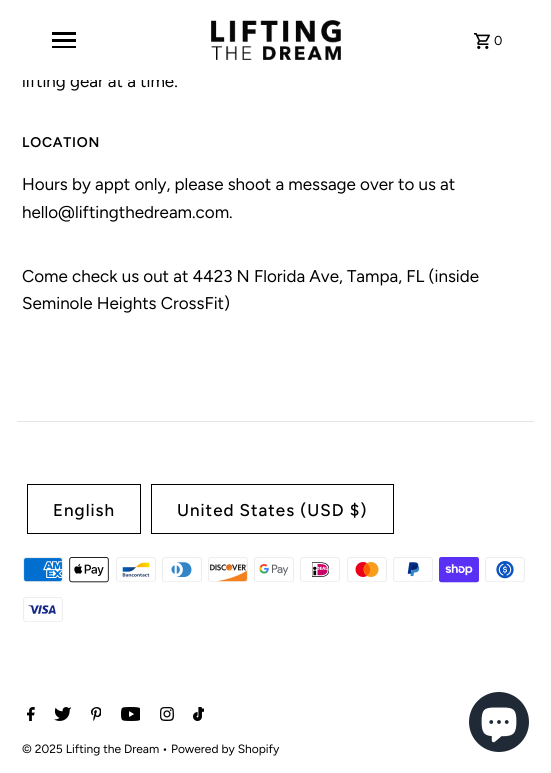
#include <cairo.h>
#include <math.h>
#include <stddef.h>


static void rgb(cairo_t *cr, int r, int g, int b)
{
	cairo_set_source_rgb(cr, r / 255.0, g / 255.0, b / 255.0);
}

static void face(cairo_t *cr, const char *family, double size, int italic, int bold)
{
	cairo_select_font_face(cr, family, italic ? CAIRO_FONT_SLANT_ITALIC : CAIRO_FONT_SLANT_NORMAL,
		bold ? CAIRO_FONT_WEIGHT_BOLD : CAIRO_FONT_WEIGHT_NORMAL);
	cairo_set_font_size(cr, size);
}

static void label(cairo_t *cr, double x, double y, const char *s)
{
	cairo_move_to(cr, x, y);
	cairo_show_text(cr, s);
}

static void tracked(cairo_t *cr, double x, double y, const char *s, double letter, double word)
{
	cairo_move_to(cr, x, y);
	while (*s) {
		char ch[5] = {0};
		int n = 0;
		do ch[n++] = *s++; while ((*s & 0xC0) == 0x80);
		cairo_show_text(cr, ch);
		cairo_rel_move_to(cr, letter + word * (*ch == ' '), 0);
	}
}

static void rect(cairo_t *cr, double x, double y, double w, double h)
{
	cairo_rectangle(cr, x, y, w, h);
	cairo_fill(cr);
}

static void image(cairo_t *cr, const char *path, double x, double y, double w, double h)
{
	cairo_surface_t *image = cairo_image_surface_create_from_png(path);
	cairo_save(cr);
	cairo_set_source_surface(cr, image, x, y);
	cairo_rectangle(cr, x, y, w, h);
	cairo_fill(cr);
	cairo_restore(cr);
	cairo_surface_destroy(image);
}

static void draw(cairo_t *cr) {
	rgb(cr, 255, 255, 255);
	cairo_paint(cr);
	face(cr, "Figtree", 17, 0, 0);
	rgb(cr, 0, 0, 0);
	label(cr, 22, 87, "lifting gear at a time.");
	rgb(cr, 255, 255, 255);
	rect(cr, 23, 74, 150, 6);
	rgb(cr, 0, 0, 0);
	rect(cr, 52, 46, 24, 2);
	rect(cr, 52, 39, 24, 3);
	rect(cr, 52, 32, 24, 3);
	image(cr, "image0.png", 211, 20, 130, 40);
	image(cr, "image1.png", 474, 33, 16, 16);
	face(cr, "Figtree", 13, 0, 0);
	tracked(cr, 494, 45, "0", 1, 0);
	face(cr, "Figtree SemiBold", 14, 0, 0);
	tracked(cr, 22, 147, "LOCATION", 0.75, 0);
	face(cr, "Figtree", 17, 0, 0);
	label(cr, 22, 190, "Hours by appt only, please shoot a message over to us at");
	label(cr, 22, 218, "hello@liftingthedream.com.");
	label(cr, 22, 282, "Come check us out at 4423 N Florida Ave, Tampa, FL (inside");
	label(cr, 22, 309, "Seminole Heights CrossFit)");
	rgb(cr, 229, 229, 229);
	rect(cr, 17, 421, 517, 1);
	cairo_rectangle(cr, 27.5, 484.5, 113, 49);
	rgb(cr, 0, 0, 0);
	cairo_set_line_width(cr, 1);
	cairo_stroke(cr);
	face(cr, "Figtree Medium", 17, 0, 0);
	tracked(cr, 53, 516, "English", 1, 0);
	cairo_rectangle(cr, 151.5, 484.5, 242, 49);
	cairo_stroke(cr);
	tracked(cr, 177, 516, "United States (USD $)", 1, 0);
	image(cr, "image2.png", 23, 557, 40, 25);
	image(cr, "image3.png", 69, 557, 40, 26);
	image(cr, "image4.png", 116, 557, 40, 25);
	image(cr, "image5.png", 162, 557, 40, 25);
	image(cr, "image6.png", 208, 557, 40, 25);
	image(cr, "image7.png", 254, 557, 40, 25);
	image(cr, "image8.png", 300, 557, 40, 25);
	image(cr, "image9.png", 347, 557, 40, 25);
	image(cr, "image10.png", 393, 557, 40, 25);
	image(cr, "image11.png", 439, 557, 40, 26);
	image(cr, "image12.png", 485, 557, 40, 25);
	image(cr, "image13.png", 23, 597, 40, 25);
	image(cr, "image14.png", 27, 707, 8, 14);
	image(cr, "image15.png", 54, 707, 17, 14);
	image(cr, "image16.png", 91, 707, 10, 14);
	image(cr, "image17.png", 121, 707, 19, 14);
	image(cr, "image18.png", 160, 707, 14, 14);
	image(cr, "image19.png", 193, 707, 11, 14);
	face(cr, "Figtree", 12, 0, 0);
	label(cr, 22, 753, "© 2025 Lifting the Dream • Powered by Shopify");
	rgb(cr, 32, 42, 54);
	cairo_new_path(cr);
	cairo_arc(cr, 499, 722, 30, 0, 2 * M_PI);
	cairo_fill(cr);
	image(cr, "image20.png", 481, 707, 36, 36);
	rgb(cr, 245, 245, 245);
	rect(cr, 549, 771, 2, 2);
}

int main(void) {
	cairo_surface_t *surface = cairo_image_surface_create(CAIRO_FORMAT_RGB24, 551, 773);
	cairo_t *cr = cairo_create(surface);
	cairo_font_options_t *options = cairo_font_options_create();
	cairo_font_options_set_hint_metrics(options, CAIRO_HINT_METRICS_OFF);
	cairo_font_options_set_hint_style(options, CAIRO_HINT_STYLE_NONE);
	cairo_set_font_options(cr, options);
	cairo_set_miter_limit(cr, 4);
	draw(cr);
	cairo_surface_write_to_png(surface, "render.png");
	cairo_font_options_destroy(options);
	cairo_destroy(cr);
	cairo_surface_destroy(surface);
	return 0;
}
